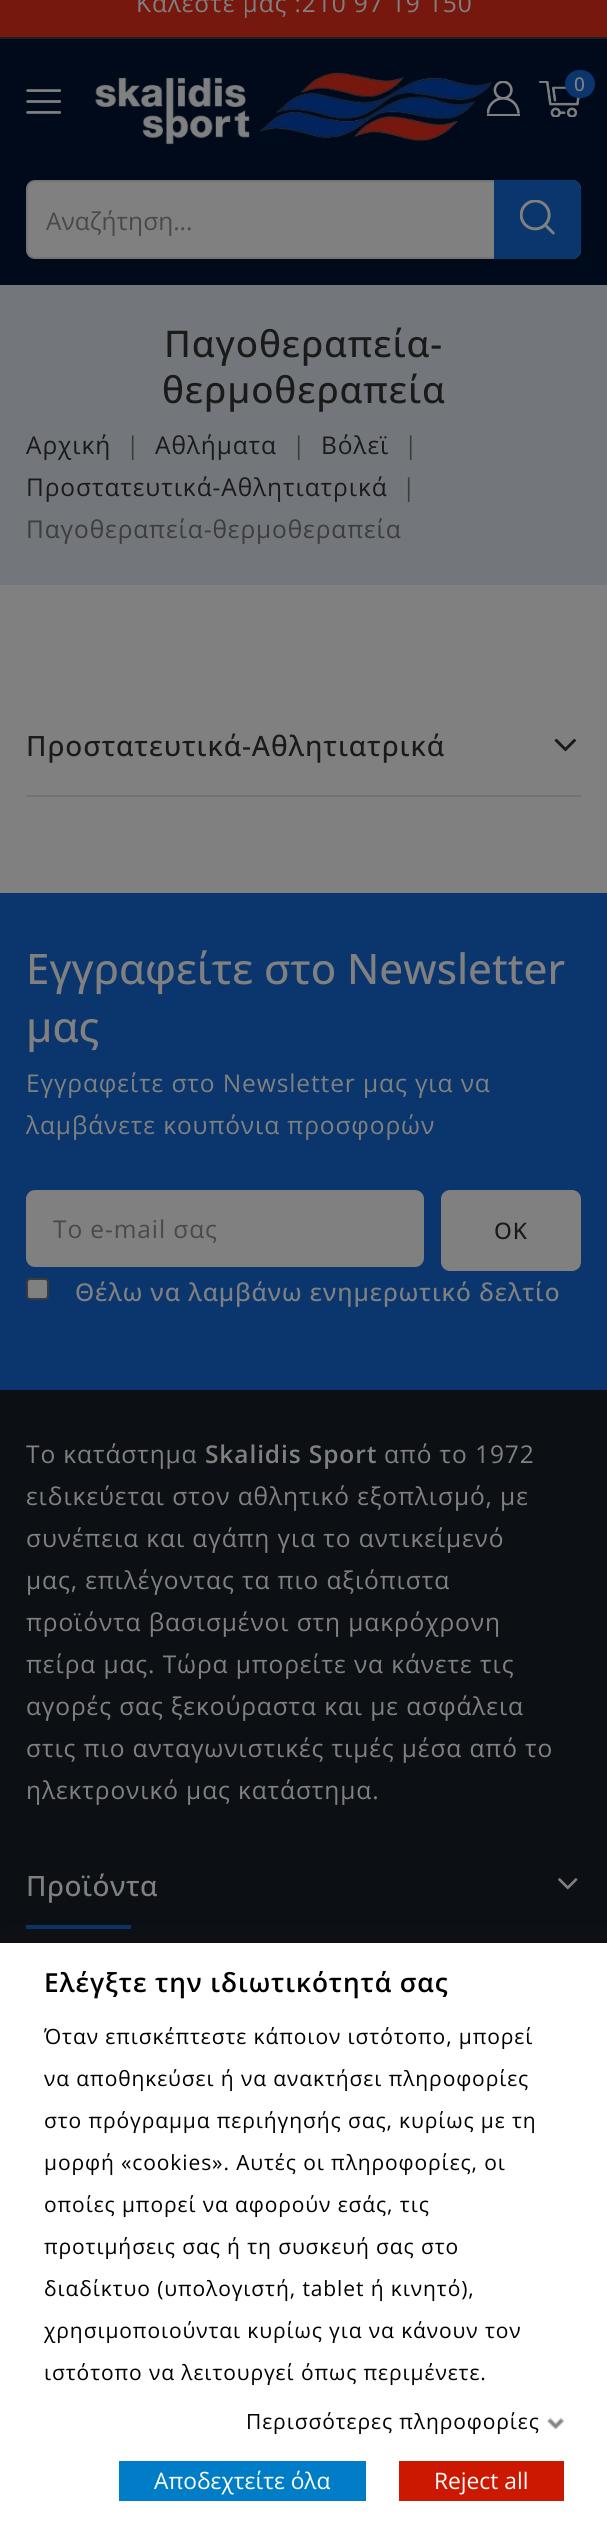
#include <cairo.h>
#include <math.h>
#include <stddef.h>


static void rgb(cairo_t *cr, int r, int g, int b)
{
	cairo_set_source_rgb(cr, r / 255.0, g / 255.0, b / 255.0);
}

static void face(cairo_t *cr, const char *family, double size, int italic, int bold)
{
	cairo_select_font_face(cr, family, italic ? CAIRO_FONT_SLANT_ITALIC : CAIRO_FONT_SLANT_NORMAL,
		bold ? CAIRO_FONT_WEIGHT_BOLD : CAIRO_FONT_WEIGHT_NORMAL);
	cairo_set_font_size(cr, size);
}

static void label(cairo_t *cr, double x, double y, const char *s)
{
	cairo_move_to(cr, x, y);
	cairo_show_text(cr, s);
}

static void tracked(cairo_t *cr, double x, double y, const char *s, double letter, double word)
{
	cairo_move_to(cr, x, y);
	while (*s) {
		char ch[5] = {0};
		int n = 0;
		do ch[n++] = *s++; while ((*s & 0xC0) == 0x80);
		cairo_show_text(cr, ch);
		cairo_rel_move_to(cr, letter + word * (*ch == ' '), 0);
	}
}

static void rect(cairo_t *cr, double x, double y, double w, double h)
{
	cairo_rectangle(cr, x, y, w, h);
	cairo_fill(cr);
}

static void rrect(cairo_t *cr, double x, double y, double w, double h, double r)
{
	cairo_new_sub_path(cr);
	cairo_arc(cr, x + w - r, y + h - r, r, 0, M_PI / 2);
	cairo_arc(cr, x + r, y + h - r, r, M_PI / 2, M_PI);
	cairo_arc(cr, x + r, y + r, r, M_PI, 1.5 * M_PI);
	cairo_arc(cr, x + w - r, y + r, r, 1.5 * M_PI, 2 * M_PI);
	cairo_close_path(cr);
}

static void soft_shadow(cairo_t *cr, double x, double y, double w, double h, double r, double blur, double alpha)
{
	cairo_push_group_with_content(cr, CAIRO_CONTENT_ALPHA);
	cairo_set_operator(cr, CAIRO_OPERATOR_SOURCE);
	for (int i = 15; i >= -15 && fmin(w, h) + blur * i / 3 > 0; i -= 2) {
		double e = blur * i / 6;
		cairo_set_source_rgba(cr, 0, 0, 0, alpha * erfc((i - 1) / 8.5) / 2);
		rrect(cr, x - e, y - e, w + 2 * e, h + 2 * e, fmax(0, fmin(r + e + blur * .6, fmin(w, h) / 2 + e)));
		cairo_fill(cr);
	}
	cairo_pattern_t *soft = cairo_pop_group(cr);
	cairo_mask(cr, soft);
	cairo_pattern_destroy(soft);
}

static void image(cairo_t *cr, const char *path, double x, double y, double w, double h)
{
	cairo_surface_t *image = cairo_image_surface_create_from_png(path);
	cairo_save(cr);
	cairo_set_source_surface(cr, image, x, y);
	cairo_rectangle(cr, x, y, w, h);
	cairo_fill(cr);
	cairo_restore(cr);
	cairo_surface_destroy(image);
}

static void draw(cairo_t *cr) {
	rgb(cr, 128, 128, 128);
	cairo_paint(cr);
	rgb(cr, 118, 24, 14);
	rect(cr, 0, 0, 607, 37);
	rgb(cr, 29, 32, 36);
	rect(cr, 0, 37, 607, 2);
	face(cr, "Open Sans", 24.5, 0, 0);
	rgb(cr, 128, 128, 128);
	tracked(cr, 136, 12, "Καλέστε μας :210 97 19 150", 0.9, 0);
	rgb(cr, 0, 10, 26);
	rect(cr, 0, 39, 607, 246);
	image(cr, "image0.png", 95, 72, 397, 73);
	image(cr, "image1.png", 487, 81, 33, 35);
	image(cr, "image2.png", 539, 81, 41, 36);
	rgb(cr, 10, 54, 109);
	rrect(cr, 565, 70, 30, 28, 14);
	cairo_fill(cr);
	face(cr, "Open Sans Medium", 19, 0, 0);
	rgb(cr, 128, 128, 128);
	tracked(cr, 574, 91, "0", 0.9, 0);
	image(cr, "image3.png", 26, 89, 35, 25);
	rrect(cr, 27, 181, 553, 77, 8);
	cairo_fill_preserve(cr);
	rgb(cr, 115, 115, 115);
	cairo_stroke(cr);
	face(cr, "Open Sans", 24.5, 0, 0);
	rgb(cr, 73, 73, 73);
	label(cr, 46, 230, "Αναζήτηση...");
	rgb(cr, 10, 54, 109);
	cairo_new_path(cr);
	cairo_move_to(cr, 494, 180);
	cairo_line_to(cr, 572, 180);
	cairo_curve_to(cr, 577, 180, 581, 184, 581, 189);
	cairo_line_to(cr, 581, 250);
	cairo_curve_to(cr, 581, 255, 577, 259, 572, 259);
	cairo_line_to(cr, 494, 259);
	cairo_close_path(cr);
	cairo_fill(cr);
	image(cr, "image4.png", 520, 200, 35, 35);
	rgb(cr, 115, 119, 123);
	rect(cr, 0, 285, 607, 300);
	face(cr, "Open Sans Medium", 36.75, 0, 0);
	rgb(cr, 26, 26, 26);
	tracked(cr, 164, 357, "Παγοθεραπεία-", 0.9, 0);
	tracked(cr, 162, 403, "θερμοθεραπεία", 0.9, 0);
	face(cr, "Open Sans", 24.5, 0, 0);
	tracked(cr, 26, 454, "Αρχική", 0.9, 0);
	rgb(cr, 60, 60, 60);
	tracked(cr, 126, 454, "|", 0.9, 0);
	rgb(cr, 26, 26, 26);
	tracked(cr, 155, 454, "Αθλήματα", 0.9, 0);
	rgb(cr, 60, 60, 60);
	tracked(cr, 292, 454, "|", 0.9, 0);
	rgb(cr, 26, 26, 26);
	tracked(cr, 321, 454, "Βόλεϊ", 0.9, 0);
	rgb(cr, 60, 60, 60);
	tracked(cr, 404, 454, "|", 0.9, 0);
	rgb(cr, 26, 26, 26);
	tracked(cr, 26, 496, "Προστατευτικά-Αθλητιατρικά", 0.9, 0);
	rgb(cr, 60, 60, 60);
	tracked(cr, 402, 496, "|", 0.9, 0);
	tracked(cr, 26, 538, "Παγοθεραπεία-θερμοθεραπεία", 0.9, 0);
	rgb(cr, 115, 115, 115);
	rect(cr, 26, 795, 555, 2);
	face(cr, "Open Sans Medium", 28, 0, 0);
	rgb(cr, 26, 26, 26);
	tracked(cr, 26, 756, "Προστατευτικά-Αθλητιατρικά", 0.9, 0);
	image(cr, "image5.png", 554, 738, 22, 14);
	rgb(cr, 12, 15, 20);
	rect(cr, 0, 1390, 607, 553);
	rgb(cr, 10, 54, 109);
	rect(cr, 0, 893, 607, 497);
	face(cr, "Open Sans Medium", 42, 0, 0);
	rgb(cr, 128, 128, 128);
	label(cr, 26, 984, "Εγγραφείτε στο Newsletter");
	label(cr, 26, 1042, "μας");
	face(cr, "Open Sans", 24.5, 0, 0);
	tracked(cr, 26, 1092, "Εγγραφείτε στο Newsletter μας για να", 0.9, 0);
	tracked(cr, 26, 1134, "λαμβάνετε κουπόνια προσφορών", 0.9, 0);
	rrect(cr, 26, 1190, 398, 77, 9);
	cairo_fill(cr);
	cairo_save(cr);
	cairo_rectangle(cr, 53, 1211, 344, 33);
	cairo_clip(cr);
	rgb(cr, 73, 73, 73);
	tracked(cr, 53, 1238, "Το e-mail σας", 0.9, 0);
	cairo_restore(cr);
	rrect(cr, 441, 1190, 140, 81, 9);
	cairo_fill(cr);
	face(cr, "Open Sans Medium", 22.75, 0, 0);
	rgb(cr, 26, 26, 26);
	tracked(cr, 494, 1239, "ΟΚ", 0.9, 0);
	rgb(cr, 128, 128, 128);
	rrect(cr, 27, 1279, 21, 20, 3);
	cairo_fill_preserve(cr);
	rgb(cr, 59, 59, 59);
	cairo_stroke(cr);
	face(cr, "Open Sans Medium", 24.5, 0, 0);
	rgb(cr, 128, 128, 128);
	tracked(cr, 75, 1301, "Θέλω να λαμβάνω ενημερωτικό δελτίο", 0.9, 0);
	face(cr, "Open Sans", 24.5, 0, 0);
	tracked(cr, 26, 1463, "Το κατάστημα", 0.9, 0);
	face(cr, "Open Sans SemiBold", 24.5, 0, 0);
	tracked(cr, 205, 1463, "Skalidis Sport", 0.9, 0);
	face(cr, "Open Sans", 24.5, 0, 0);
	tracked(cr, 384, 1463, "από το 1972", 0.9, 0);
	tracked(cr, 26, 1505, "ειδικεύεται στον αθλητικό εξοπλισμό, με", 0.9, 0);
	tracked(cr, 26, 1547, "συνέπεια και αγάπη για το αντικείμενό", 0.9, 0);
	tracked(cr, 26, 1589, "μας, επιλέγοντας τα πιο αξιόπιστα", 0.9, 0);
	tracked(cr, 26, 1631, "προϊόντα βασισμένοι στη μακρόχρονη", 0.9, 0);
	tracked(cr, 26, 1673, "πείρα μας. Τώρα μπορείτε να κάνετε τις", 0.9, 0);
	tracked(cr, 26, 1715, "αγορές σας ξεκούραστα και με ασφάλεια", 0.9, 0);
	tracked(cr, 26, 1757, "στις πιο ανταγωνιστικές τιμές μέσα από το", 0.9, 0);
	tracked(cr, 26, 1799, "ηλεκτρονικό μας κατάστημα.", 0.9, 0);
	face(cr, "Open Sans Medium", 28, 0, 0);
	tracked(cr, 26, 1896, "Προϊόντα", 0.5, 0);
	image(cr, "image6.png", 558, 1878, 20, 12);
	rgb(cr, 10, 54, 109);
	rect(cr, 26, 1925, 105, 4);
	rgb(cr, 18, 18, 18);
	soft_shadow(cr, 0, 1943, 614, 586, 0, 12, 1);
	rgb(cr, 255, 255, 255);
	rect(cr, 0, 1943, 607, 578);
	face(cr, "Open Sans SemiBold", 26.25, 0, 0);
	rgb(cr, 0, 0, 0);
	tracked(cr, 44, 1992, "Ελέγξτε την ιδιωτικότητά σας", 0.9, 0);
	face(cr, "Open Sans", 21, 0, 0);
	tracked(cr, 44, 2044, "Όταν επισκέπτεστε κάποιον ιστότοπο, μπορεί", 0.9, 0);
	tracked(cr, 44, 2086, "να αποθηκεύσει ή να ανακτήσει πληροφορίες", 0.9, 0);
	tracked(cr, 44, 2128, "στο πρόγραμμα περιήγησής σας, κυρίως με τη", 0.9, 0);
	tracked(cr, 44, 2170, "μορφή «cookies». Αυτές οι πληροφορίες, οι", 0.9, 0);
	tracked(cr, 44, 2212, "οποίες μπορεί να αφορούν εσάς, τις", 0.9, 0);
	tracked(cr, 44, 2254, "προτιμήσεις σας ή τη συσκευή σας στο", 0.9, 0);
	tracked(cr, 44, 2296, "διαδίκτυο (υπολογιστή, tablet ή κινητό),", 0.9, 0);
	tracked(cr, 44, 2338, "χρησιμοποιούνται κυρίως για να κάνουν τον", 0.9, 0);
	tracked(cr, 44, 2380, "ιστότοπο να λειτουργεί όπως περιμένετε.", 0.9, 0);
	tracked(cr, 246, 2429, "Περισσότερες πληροφορίες", 0.9, 0);
	image(cr, "image7.png", 547, 2417, 17, 12);
	rgb(cr, 0, 125, 198);
	rect(cr, 119, 2461, 247, 40);
	face(cr, "Open Sans", 22.75, 0, 0);
	rgb(cr, 255, 255, 255);
	label(cr, 154, 2489, "Αποδεχτείτε όλα");
	rgb(cr, 204, 24, 0);
	rect(cr, 399, 2461, 165, 40);
	rgb(cr, 255, 255, 255);
	label(cr, 434, 2489, "Reject all");
}

int main(void) {
	cairo_surface_t *surface = cairo_image_surface_create(CAIRO_FORMAT_RGB24, 607, 2521);
	cairo_t *cr = cairo_create(surface);
	cairo_font_options_t *options = cairo_font_options_create();
	cairo_font_options_set_hint_metrics(options, CAIRO_HINT_METRICS_OFF);
	cairo_font_options_set_hint_style(options, CAIRO_HINT_STYLE_NONE);
	cairo_set_font_options(cr, options);
	cairo_set_miter_limit(cr, 4);
	draw(cr);
	cairo_surface_write_to_png(surface, "render.png");
	cairo_font_options_destroy(options);
	cairo_destroy(cr);
	cairo_surface_destroy(surface);
	return 0;
}
